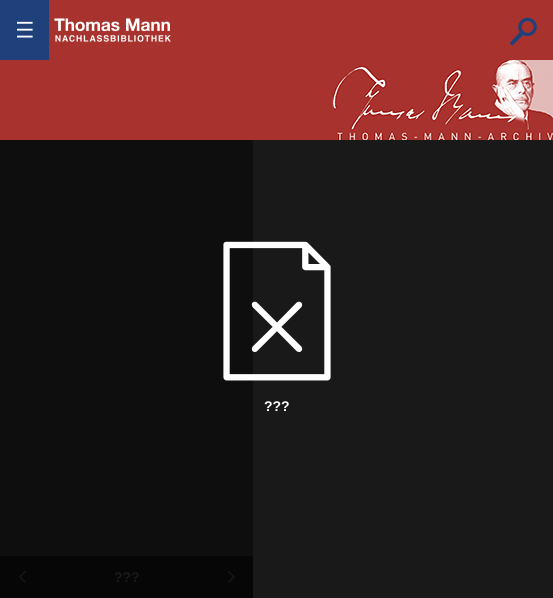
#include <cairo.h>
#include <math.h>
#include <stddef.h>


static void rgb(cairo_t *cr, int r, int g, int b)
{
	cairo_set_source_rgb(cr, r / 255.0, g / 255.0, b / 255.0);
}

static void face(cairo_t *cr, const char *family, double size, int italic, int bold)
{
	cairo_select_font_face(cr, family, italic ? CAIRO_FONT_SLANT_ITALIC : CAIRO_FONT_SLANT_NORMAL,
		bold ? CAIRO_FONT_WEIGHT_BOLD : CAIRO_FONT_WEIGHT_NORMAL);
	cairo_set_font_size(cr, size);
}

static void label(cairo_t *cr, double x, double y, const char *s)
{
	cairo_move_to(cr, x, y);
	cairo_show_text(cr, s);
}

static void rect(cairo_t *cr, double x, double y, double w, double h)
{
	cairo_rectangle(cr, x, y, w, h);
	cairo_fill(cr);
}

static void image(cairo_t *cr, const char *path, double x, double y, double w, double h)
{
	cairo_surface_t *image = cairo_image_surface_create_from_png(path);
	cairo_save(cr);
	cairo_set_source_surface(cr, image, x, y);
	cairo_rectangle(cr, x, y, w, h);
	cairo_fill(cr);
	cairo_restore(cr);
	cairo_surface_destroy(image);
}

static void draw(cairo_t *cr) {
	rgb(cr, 14, 14, 14);
	cairo_paint(cr);
	rgb(cr, 168, 50, 45);
	rect(cr, 0, 0, 553, 140);
	rgb(cr, 31, 64, 122);
	rect(cr, 0, 0, 49, 60);
	image(cr, "image0.png", 17, 21, 16, 17);
	image(cr, "image1.png", 54, 18, 117, 24);
	image(cr, "image2.png", 510, 17, 27, 29);
	image(cr, "image3.png", 333, 60, 220, 80);
	rgb(cr, 25, 25, 25);
	rect(cr, 253, 140, 300, 458);
	image(cr, "image4.png", 223, 241, 108, 140);
	face(cr, "Liberation Sans", 14, 0, 1);
	rgb(cr, 255, 255, 255);
	label(cr, 264, 411, "?\077?");
	rgb(cr, 6, 6, 6);
	rect(cr, 0, 556, 253, 42);
	image(cr, "image5.png", 19, 571, 7, 12);
	rgb(cr, 25, 25, 25);
	label(cr, 114, 582, "?\077?");
	image(cr, "image6.png", 228, 571, 7, 12);
}

int main(void) {
	cairo_surface_t *surface = cairo_image_surface_create(CAIRO_FORMAT_RGB24, 553, 598);
	cairo_t *cr = cairo_create(surface);
	cairo_font_options_t *options = cairo_font_options_create();
	cairo_font_options_set_hint_metrics(options, CAIRO_HINT_METRICS_OFF);
	cairo_font_options_set_hint_style(options, CAIRO_HINT_STYLE_NONE);
	cairo_set_font_options(cr, options);
	cairo_set_miter_limit(cr, 4);
	draw(cr);
	cairo_surface_write_to_png(surface, "render.png");
	cairo_font_options_destroy(options);
	cairo_destroy(cr);
	cairo_surface_destroy(surface);
	return 0;
}
